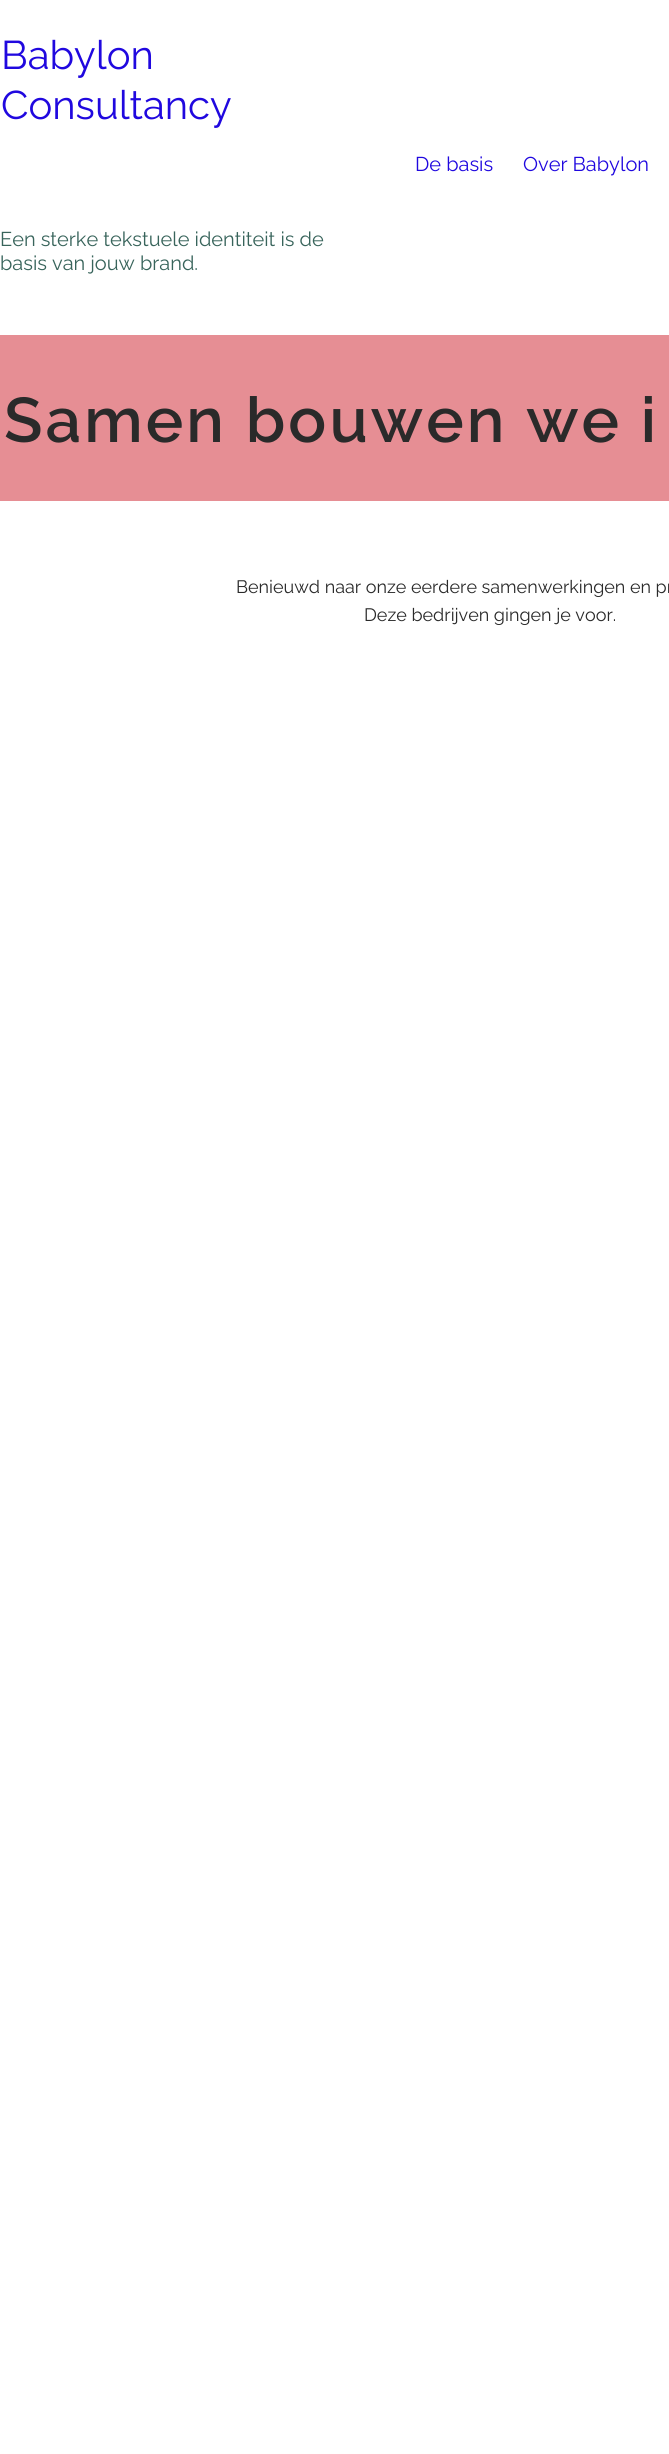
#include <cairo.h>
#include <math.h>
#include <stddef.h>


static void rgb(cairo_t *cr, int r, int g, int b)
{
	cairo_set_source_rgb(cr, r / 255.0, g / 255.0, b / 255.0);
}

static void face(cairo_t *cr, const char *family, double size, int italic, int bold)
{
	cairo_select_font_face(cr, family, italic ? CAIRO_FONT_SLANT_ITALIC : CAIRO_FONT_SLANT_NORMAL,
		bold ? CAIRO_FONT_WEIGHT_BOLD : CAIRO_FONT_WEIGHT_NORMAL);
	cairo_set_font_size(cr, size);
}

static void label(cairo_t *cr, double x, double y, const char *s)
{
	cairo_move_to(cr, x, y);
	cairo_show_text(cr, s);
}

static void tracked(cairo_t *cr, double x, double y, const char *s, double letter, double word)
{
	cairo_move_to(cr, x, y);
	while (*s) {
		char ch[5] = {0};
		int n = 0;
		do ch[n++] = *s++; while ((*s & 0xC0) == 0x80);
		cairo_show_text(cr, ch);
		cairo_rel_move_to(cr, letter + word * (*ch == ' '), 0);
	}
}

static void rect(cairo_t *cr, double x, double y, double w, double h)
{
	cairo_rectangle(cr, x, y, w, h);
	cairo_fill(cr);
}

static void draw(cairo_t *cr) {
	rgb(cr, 255, 255, 255);
	cairo_paint(cr);
	face(cr, "Raleway", 40, 0, 0);
	rgb(cr, 32, 8, 223);
	label(cr, 1, 69, "Babylon");
	label(cr, 1, 119, "Consultancy");
	face(cr, "Raleway", 20, 0, 0);
	label(cr, 415, 171, "De basis");
	label(cr, 523, 171, "Over Babylon");
	rgb(cr, 56, 100, 91);
	label(cr, 0, 246, "Een sterke tekstuele identiteit is de");
	label(cr, 0, 270, "basis van jouw brand.");
	rgb(cr, 230, 142, 148);
	rect(cr, 0, 335, 669, 166);
	face(cr, "Raleway SemiBold", 63, 0, 0);
	rgb(cr, 42, 42, 42);
	tracked(cr, 4, 442, "Samen bouwen we i", 3.1, 0);
	face(cr, "Raleway", 18, 0, 0);
	label(cr, 236, 593, "Benieuwd naar onze eerdere samenwerkingen en pr");
	label(cr, 364, 621, "Deze bedrijven gingen je voor.");
}

int main(void) {
	cairo_surface_t *surface = cairo_image_surface_create(CAIRO_FORMAT_RGB24, 669, 2454);
	cairo_t *cr = cairo_create(surface);
	cairo_font_options_t *options = cairo_font_options_create();
	cairo_font_options_set_hint_metrics(options, CAIRO_HINT_METRICS_OFF);
	cairo_font_options_set_hint_style(options, CAIRO_HINT_STYLE_NONE);
	cairo_set_font_options(cr, options);
	cairo_set_miter_limit(cr, 4);
	draw(cr);
	cairo_surface_write_to_png(surface, "render.png");
	cairo_font_options_destroy(options);
	cairo_destroy(cr);
	cairo_surface_destroy(surface);
	return 0;
}
